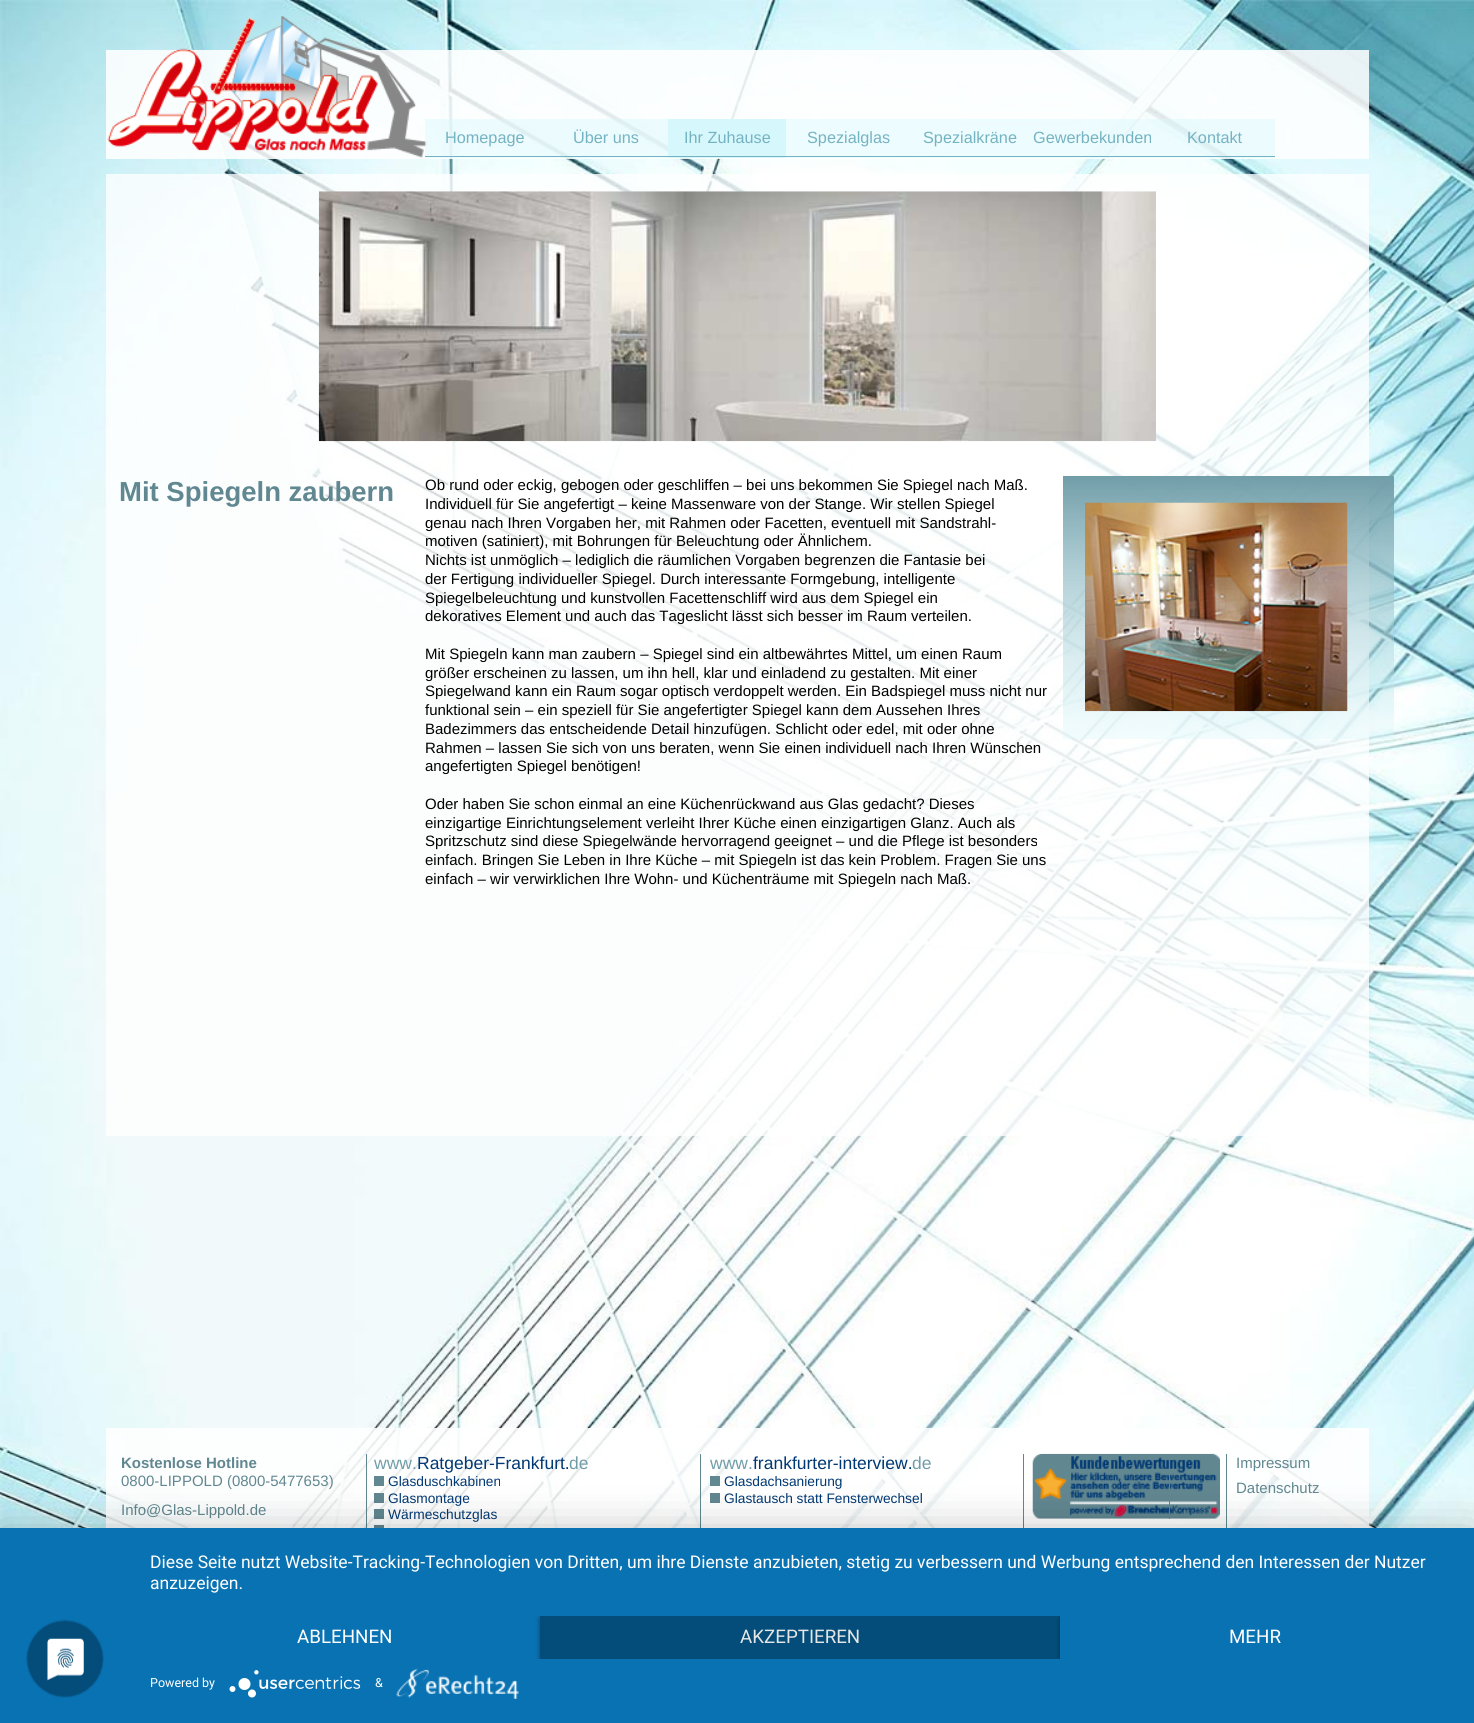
#include <cairo.h>
#include <math.h>
#include <stddef.h>


static void rgb(cairo_t *cr, int r, int g, int b)
{
	cairo_set_source_rgb(cr, r / 255.0, g / 255.0, b / 255.0);
}

static void face(cairo_t *cr, const char *family, double size, int italic, int bold)
{
	cairo_select_font_face(cr, family, italic ? CAIRO_FONT_SLANT_ITALIC : CAIRO_FONT_SLANT_NORMAL,
		bold ? CAIRO_FONT_WEIGHT_BOLD : CAIRO_FONT_WEIGHT_NORMAL);
	cairo_set_font_size(cr, size);
}

static void label(cairo_t *cr, double x, double y, const char *s)
{
	cairo_move_to(cr, x, y);
	cairo_show_text(cr, s);
}

static void rect(cairo_t *cr, double x, double y, double w, double h)
{
	cairo_rectangle(cr, x, y, w, h);
	cairo_fill(cr);
}

static void rrect(cairo_t *cr, double x, double y, double w, double h, double r)
{
	cairo_new_sub_path(cr);
	cairo_arc(cr, x + w - r, y + h - r, r, 0, M_PI / 2);
	cairo_arc(cr, x + r, y + h - r, r, M_PI / 2, M_PI);
	cairo_arc(cr, x + r, y + r, r, M_PI, 1.5 * M_PI);
	cairo_arc(cr, x + w - r, y + r, r, 1.5 * M_PI, 2 * M_PI);
	cairo_close_path(cr);
}

static void soft_shadow(cairo_t *cr, double x, double y, double w, double h, double r, double blur, double alpha)
{
	cairo_push_group_with_content(cr, CAIRO_CONTENT_ALPHA);
	cairo_set_operator(cr, CAIRO_OPERATOR_SOURCE);
	for (int i = 15; i >= -15 && fmin(w, h) + blur * i / 3 > 0; i -= 2) {
		double e = blur * i / 6;
		cairo_set_source_rgba(cr, 0, 0, 0, alpha * erfc((i - 1) / 8.5) / 2);
		rrect(cr, x - e, y - e, w + 2 * e, h + 2 * e, fmax(0, fmin(r + e + blur * .6, fmin(w, h) / 2 + e)));
		cairo_fill(cr);
	}
	cairo_pattern_t *soft = cairo_pop_group(cr);
	cairo_mask(cr, soft);
	cairo_pattern_destroy(soft);
}

static void image(cairo_t *cr, const char *path, double x, double y, double w, double h)
{
	cairo_surface_t *image = cairo_image_surface_create_from_png(path);
	cairo_save(cr);
	cairo_set_source_surface(cr, image, x, y);
	cairo_rectangle(cr, x, y, w, h);
	cairo_fill(cr);
	cairo_restore(cr);
	cairo_surface_destroy(image);
}

static void draw(cairo_t *cr) {
	cairo_pattern_t *gradient;
	rgb(cr, 255, 255, 255);
	cairo_paint(cr);
	image(cr, "image0.png", 0, 0, 1474, 1528);
	cairo_set_source_rgba(cr, 1, 1, 1, 0.87);
	rect(cr, 106, 50, 1263, 109);
	cairo_set_source_rgba(cr, 0.839, 0.969, 0.988, 0.4);
	rect(cr, 425, 119, 850, 39);
	rgb(cr, 214, 247, 252);
	rect(cr, 668, 119, 118, 39);
	rgb(cr, 116, 179, 194);
	rect(cr, 425, 156, 850, 1);
	image(cr, "image1.png", 107, 16, 320, 142);
	face(cr, "Liberation Sans", 16.25, 0, 0);
	label(cr, 445, 143, "Homepage");
	label(cr, 573, 143, "Über uns");
	label(cr, 684, 143, "Ihr Zuhause");
	label(cr, 807, 143, "Spezialglas");
	label(cr, 923, 143, "Spezialkräne");
	label(cr, 1033, 143, "Gewerbekunden");
	label(cr, 1187, 143, "Kontakt");
	cairo_set_source_rgba(cr, 1, 1, 1, 0.77);
	rect(cr, 106, 174, 1263, 962);
	image(cr, "image2.png", 318, 191, 838, 251);
	face(cr, "Liberation Sans", 27.5, 0, 1);
	rgb(cr, 97, 135, 144);
	label(cr, 119, 501, "Mit Spiegeln zaubern");
	face(cr, "Liberation Sans", 15, 0, 0);
	rgb(cr, 0, 0, 0);
	label(cr, 425, 490, "Ob rund oder eckig, gebogen oder geschliffen – bei uns bekommen Sie Spiegel nach Maß.");
	label(cr, 425, 509, "Individuell für Sie angefertigt – keine Massenware von der Stange. Wir stellen Spiegel");
	label(cr, 425, 528, "genau nach Ihren Vorgaben her, mit Rahmen oder Facetten, eventuell mit Sandstrahl-");
	label(cr, 425, 546, "motiven (satiniert), mit Bohrungen für Beleuchtung oder Ähnlichem.");
	label(cr, 425, 565, "Nichts ist unmöglich – lediglich die räumlichen Vorgaben begrenzen die Fantasie bei");
	label(cr, 425, 584, "der Fertigung individueller Spiegel. Durch interessante Formgebung, intelligente");
	label(cr, 425, 603, "Spiegelbeleuchtung und kunstvollen Facettenschliff wird aus dem Spiegel ein");
	label(cr, 425, 621, "dekoratives Element und auch das Tageslicht lässt sich besser im Raum verteilen.");
	label(cr, 425, 659, "Mit Spiegeln kann man zaubern – Spiegel sind ein altbewährtes Mittel, um einen Raum");
	label(cr, 425, 678, "größer erscheinen zu lassen, um ihn hell, klar und einladend zu gestalten. Mit einer");
	label(cr, 425, 696, "Spiegelwand kann ein Raum sogar optisch verdoppelt werden. Ein Badspiegel muss nicht nur");
	label(cr, 425, 715, "funktional sein – ein speziell für Sie angefertigter Spiegel kann dem Aussehen Ihres");
	label(cr, 425, 734, "Badezimmers das entscheidende Detail hinzufügen. Schlicht oder edel, mit oder ohne");
	label(cr, 425, 753, "Rahmen – lassen Sie sich von uns beraten, wenn Sie einen individuell nach Ihren Wünschen");
	label(cr, 425, 771, "angefertigten Spiegel benötigen!");
	label(cr, 425, 809, "Oder haben Sie schon einmal an eine Küchenrückwand aus Glas gedacht? Dieses");
	label(cr, 425, 828, "einzigartige Einrichtungselement verleiht Ihrer Küche einen einzigartigen Glanz. Auch als");
	label(cr, 425, 846, "Spritzschutz sind diese Spiegelwände hervorragend geeignet – und die Pflege ist besonders");
	label(cr, 425, 865, "einfach. Bringen Sie Leben in Ihre Küche – mit Spiegeln ist das kein Problem. Fragen Sie uns");
	label(cr, 425, 884, "einfach – wir verwirklichen Ihre Wohn- und Küchenträume mit Spiegeln nach Maß.");
	gradient = cairo_pattern_create_linear(1228, 476, 1228, 739);
	cairo_pattern_add_color_stop_rgba(gradient, 0, 0.443, 0.616, 0.659, 1);
	cairo_pattern_add_color_stop_rgba(gradient, 1, 0.839, 0.969, 0.988, 0.3);
	cairo_set_source(cr, gradient);
	cairo_pattern_destroy(gradient);
	rect(cr, 1063, 476, 331, 263);
	image(cr, "image3.png", 1085, 502, 263, 210);
	cairo_set_source_rgba(cr, 1, 1, 1, 0.87);
	rect(cr, 106, 1428, 1263, 100);
	face(cr, "Liberation Sans", 15, 0, 1);
	rgb(cr, 97, 135, 144);
	label(cr, 121, 1468, "Kostenlose Hotline");
	face(cr, "Liberation Sans", 15, 0, 0);
	label(cr, 121, 1486, "0800-LIPPOLD (0800-5477653)");
	label(cr, 121, 1515, "Info@Glas-Lippold.de");
	rect(cr, 366, 1454, 1, 74);
	face(cr, "Liberation Sans", 17.5, 0, 0);
	rgb(cr, 113, 157, 168);
	label(cr, 374, 1469, "www.");
	rgb(cr, 0, 56, 115);
	label(cr, 417, 1469, "Ratgeber-Frankfurt.");
	rgb(cr, 113, 157, 168);
	label(cr, 569, 1469, "de");
	rgb(cr, 97, 135, 144);
	rect(cr, 374, 1476, 10, 10);
	face(cr, "Liberation Sans", 13.75, 0, 0);
	rgb(cr, 0, 56, 115);
	label(cr, 388, 1486, "Glasduschkabinen");
	rgb(cr, 97, 135, 144);
	rect(cr, 374, 1493, 10, 10);
	rgb(cr, 0, 56, 115);
	label(cr, 388, 1503, "Glasmontage");
	rgb(cr, 97, 135, 144);
	rect(cr, 374, 1509, 10, 10);
	rgb(cr, 0, 56, 115);
	label(cr, 388, 1519, "Wärmeschutzglas");
	rgb(cr, 97, 135, 144);
	rect(cr, 374, 1525, 10, 3);
	rect(cr, 700, 1454, 1, 74);
	face(cr, "Liberation Sans", 17.5, 0, 0);
	rgb(cr, 113, 157, 168);
	label(cr, 710, 1469, "www.");
	rgb(cr, 0, 56, 115);
	label(cr, 753, 1469, "frankfurter-interview.");
	rgb(cr, 113, 157, 168);
	label(cr, 912, 1469, "de");
	rgb(cr, 97, 135, 144);
	rect(cr, 710, 1476, 10, 10);
	face(cr, "Liberation Sans", 13.75, 0, 0);
	rgb(cr, 0, 56, 115);
	label(cr, 724, 1486, "Glasdachsanierung");
	rgb(cr, 97, 135, 144);
	rect(cr, 710, 1493, 10, 10);
	rgb(cr, 0, 56, 115);
	label(cr, 724, 1503, "Glastausch statt Fensterwechsel");
	rgb(cr, 97, 135, 144);
	rect(cr, 1023, 1454, 1, 74);
	image(cr, "image4.png", 1032, 1453, 188, 66);
	rect(cr, 1169, 1454, 1, 65);
	rect(cr, 1226, 1454, 1, 74);
	face(cr, "Liberation Sans", 15, 0, 0);
	label(cr, 1236, 1468, "Impressum");
	label(cr, 1236, 1493, "Datenschutz");
	rgb(cr, 0, 0, 0);
	soft_shadow(cr, 0, 1535, 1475, 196, 0, 22.5, 0.3);
	rgb(cr, 9, 114, 179);
	rect(cr, 0, 1528, 1474, 195);
	image(cr, "image5.png", 26, 1619, 78, 79);
	face(cr, "Roboto", 17.5, 0, 0);
	rgb(cr, 255, 255, 255);
	label(cr, 150, 1568, "Diese Seite nutzt Website-Tracking-Technologien von Dritten, um ihre Dienste anzubieten, stetig zu verbessern und Werbung entsprechend den Interessen der Nutzer");
	label(cr, 150, 1589, "anzuzeigen.");
	face(cr, "Roboto", 18.75, 0, 0);
	label(cr, 297, 1643, "ABLEHNEN");
	cairo_save(cr);
	cairo_rectangle(cr, 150, 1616, 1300, 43);
	cairo_clip(cr);
	rgb(cr, 0, 0, 0);
	soft_shadow(cr, 540, 1618, 520, 42, 0, 2.5, 0.4);
	cairo_restore(cr);
	rgb(cr, 4, 77, 122);
	rect(cr, 540, 1616, 520, 43);
	rgb(cr, 230, 230, 230);
	label(cr, 740, 1643, "AKZEPTIEREN");
	cairo_save(cr);
	cairo_rectangle(cr, 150, 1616, 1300, 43);
	cairo_clip(cr);
	rgb(cr, 0, 0, 0);
	soft_shadow(cr, 1060, 1618, 390, 42, 0, 2.5, 0.4);
	cairo_restore(cr);
	rgb(cr, 9, 114, 179);
	rect(cr, 1060, 1616, 390, 43);
	rgb(cr, 255, 255, 255);
	label(cr, 1229, 1643, "MEHR");
	face(cr, "Roboto", 12.5, 0, 0);
	label(cr, 150, 1687, "Powered by");
	image(cr, "image6.png", 229, 1670, 132, 28);
	label(cr, 375, 1687, "&");
	image(cr, "image7.png", 396, 1668, 123, 31);
}

int main(void) {
	cairo_surface_t *surface = cairo_image_surface_create(CAIRO_FORMAT_RGB24, 1474, 1723);
	cairo_t *cr = cairo_create(surface);
	cairo_font_options_t *options = cairo_font_options_create();
	cairo_font_options_set_hint_metrics(options, CAIRO_HINT_METRICS_OFF);
	cairo_font_options_set_hint_style(options, CAIRO_HINT_STYLE_NONE);
	cairo_set_font_options(cr, options);
	cairo_set_miter_limit(cr, 4);
	draw(cr);
	cairo_surface_write_to_png(surface, "render.png");
	cairo_font_options_destroy(options);
	cairo_destroy(cr);
	cairo_surface_destroy(surface);
	return 0;
}
